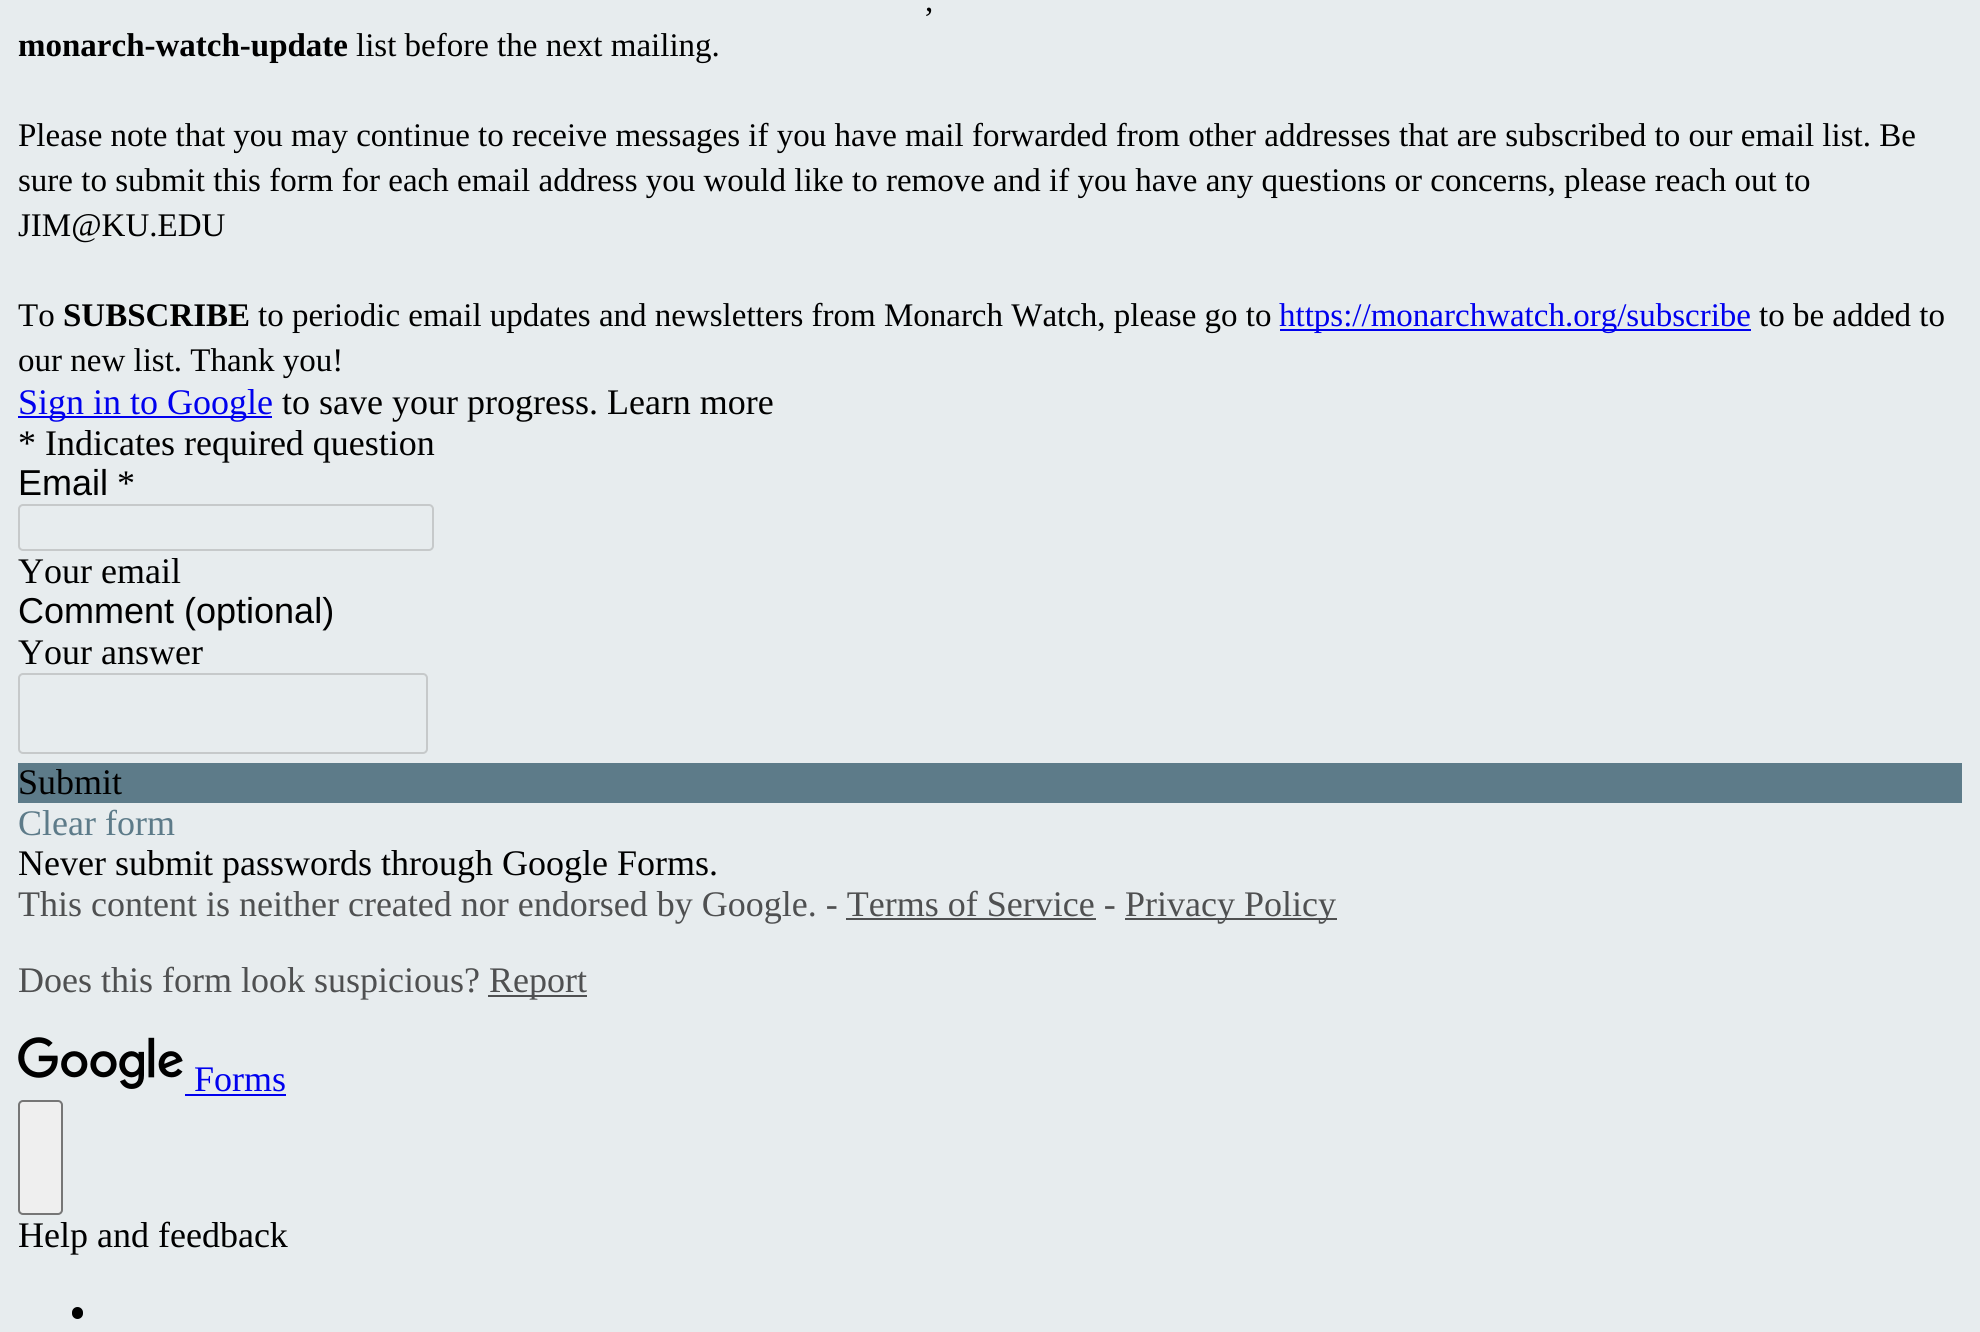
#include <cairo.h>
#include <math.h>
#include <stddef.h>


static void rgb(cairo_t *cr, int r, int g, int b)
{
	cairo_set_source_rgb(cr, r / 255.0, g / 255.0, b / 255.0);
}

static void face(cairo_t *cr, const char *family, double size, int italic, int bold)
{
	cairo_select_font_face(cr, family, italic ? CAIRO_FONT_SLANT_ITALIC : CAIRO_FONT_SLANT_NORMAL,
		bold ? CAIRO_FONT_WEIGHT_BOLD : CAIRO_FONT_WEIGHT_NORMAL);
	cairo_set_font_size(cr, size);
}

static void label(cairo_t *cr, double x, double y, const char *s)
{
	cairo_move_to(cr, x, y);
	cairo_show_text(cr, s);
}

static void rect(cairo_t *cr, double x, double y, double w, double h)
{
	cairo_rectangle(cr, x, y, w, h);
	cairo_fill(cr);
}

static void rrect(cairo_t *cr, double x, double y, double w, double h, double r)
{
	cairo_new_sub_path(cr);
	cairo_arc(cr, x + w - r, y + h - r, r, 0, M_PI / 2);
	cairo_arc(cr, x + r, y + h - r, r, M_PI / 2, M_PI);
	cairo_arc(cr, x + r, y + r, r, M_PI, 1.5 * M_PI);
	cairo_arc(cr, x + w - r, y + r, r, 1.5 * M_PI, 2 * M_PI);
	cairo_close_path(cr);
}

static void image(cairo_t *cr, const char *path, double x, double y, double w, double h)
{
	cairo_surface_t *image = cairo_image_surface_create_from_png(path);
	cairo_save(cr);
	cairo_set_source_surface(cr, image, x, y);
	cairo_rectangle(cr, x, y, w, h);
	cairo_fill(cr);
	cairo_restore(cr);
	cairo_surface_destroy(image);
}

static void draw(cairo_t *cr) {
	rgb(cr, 231, 236, 238);
	cairo_paint(cr);
	face(cr, "Liberation Serif", 33, 0, 0);
	rgb(cr, 0, 0, 0);
	label(cr, 925, 11, ",");
	face(cr, "Liberation Serif", 33, 0, 1);
	label(cr, 18, 56, "monarch-watch-update");
	face(cr, "Liberation Serif", 33, 0, 0);
	label(cr, 356, 56, "list before the next mailing.");
	label(cr, 18, 146, "Please note that you may continue to receive messages if you have mail forwarded from other addresses that are subscribed to our email list. Be");
	label(cr, 18, 191, "sure to submit this form for each email address you would like to remove and if you have any questions or concerns, please reach out to");
	label(cr, 18, 236, "JIM@KU.EDU");
	label(cr, 18, 326, "To");
	face(cr, "Liberation Serif", 33, 0, 1);
	label(cr, 63, 326, "SUBSCRIBE");
	face(cr, "Liberation Serif", 33, 0, 0);
	label(cr, 258, 326, "to periodic email updates and newsletters from Monarch Watch, please go to");
	rgb(cr, 0, 0, 238);
	rect(cr, 1280, 329, 471, 2);
	label(cr, 1279, 326, "https://monarchwatch.org/subscribe");
	rgb(cr, 0, 0, 0);
	label(cr, 1759, 326, "to be added to");
	label(cr, 18, 371, "our new list. Thank you!");
	rgb(cr, 0, 0, 238);
	rect(cr, 18, 416, 254, 2);
	face(cr, "Liberation Serif", 36, 0, 0);
	label(cr, 18, 414, "Sign in to Google");
	rgb(cr, 0, 0, 0);
	label(cr, 282, 414, "to save your progress. Learn more");
	label(cr, 18, 455, "* Indicates required question");
	face(cr, "Liberation Sans", 36, 0, 0);
	label(cr, 18, 495, "Email");
	face(cr, "Liberation Serif", 36, 0, 0);
	label(cr, 117, 495, "*");
	rrect(cr, 19, 505, 414, 45, 4);
	rgb(cr, 198, 201, 202);
	cairo_stroke(cr);
	rgb(cr, 0, 0, 0);
	label(cr, 18, 583, "Your email");
	face(cr, "Liberation Sans", 36, 0, 0);
	label(cr, 18, 623, "Comment (optional)");
	face(cr, "Liberation Serif", 36, 0, 0);
	label(cr, 18, 664, "Your answer");
	rrect(cr, 19, 674, 408, 79, 4);
	rgb(cr, 198, 201, 202);
	cairo_stroke(cr);
	rgb(cr, 93, 123, 137);
	rect(cr, 18, 763, 1944, 40);
	rgb(cr, 0, 0, 0);
	label(cr, 18, 794, "Submit");
	rgb(cr, 93, 123, 137);
	label(cr, 18, 835, "Clear form");
	rgb(cr, 0, 0, 0);
	label(cr, 18, 875, "Never submit passwords through Google Forms.");
	rgb(cr, 79, 80, 81);
	label(cr, 18, 916, "This content is neither created nor endorsed by Google. - Terms of Service -");
	rect(cr, 1125, 918, 212, 2);
	label(cr, 1125, 916, "Privacy Policy");
	rect(cr, 846, 918, 250, 2);
	label(cr, 18, 992, "Does this form look suspicious?");
	rect(cr, 488, 995, 99, 2);
	label(cr, 489, 992, "Report");
	image(cr, "image0.png", 18, 1037, 165, 52);
	rgb(cr, 0, 0, 238);
	label(cr, 194, 1091, "Forms");
	rect(cr, 185, 1094, 101, 2);
	rgb(cr, 239, 239, 239);
	rrect(cr, 19, 1101, 43, 113, 4);
	cairo_fill_preserve(cr);
	rgb(cr, 118, 118, 118);
	cairo_stroke(cr);
	rgb(cr, 0, 0, 0);
	label(cr, 18, 1247, "Help and feedback");
	rrect(cr, 72, 1307, 11, 12, 5.5);
	cairo_fill(cr);
}

int main(void) {
	cairo_surface_t *surface = cairo_image_surface_create(CAIRO_FORMAT_RGB24, 1980, 1332);
	cairo_t *cr = cairo_create(surface);
	cairo_font_options_t *options = cairo_font_options_create();
	cairo_font_options_set_hint_metrics(options, CAIRO_HINT_METRICS_OFF);
	cairo_font_options_set_hint_style(options, CAIRO_HINT_STYLE_NONE);
	cairo_set_font_options(cr, options);
	cairo_set_miter_limit(cr, 4);
	draw(cr);
	cairo_surface_write_to_png(surface, "render.png");
	cairo_font_options_destroy(options);
	cairo_destroy(cr);
	cairo_surface_destroy(surface);
	return 0;
}
